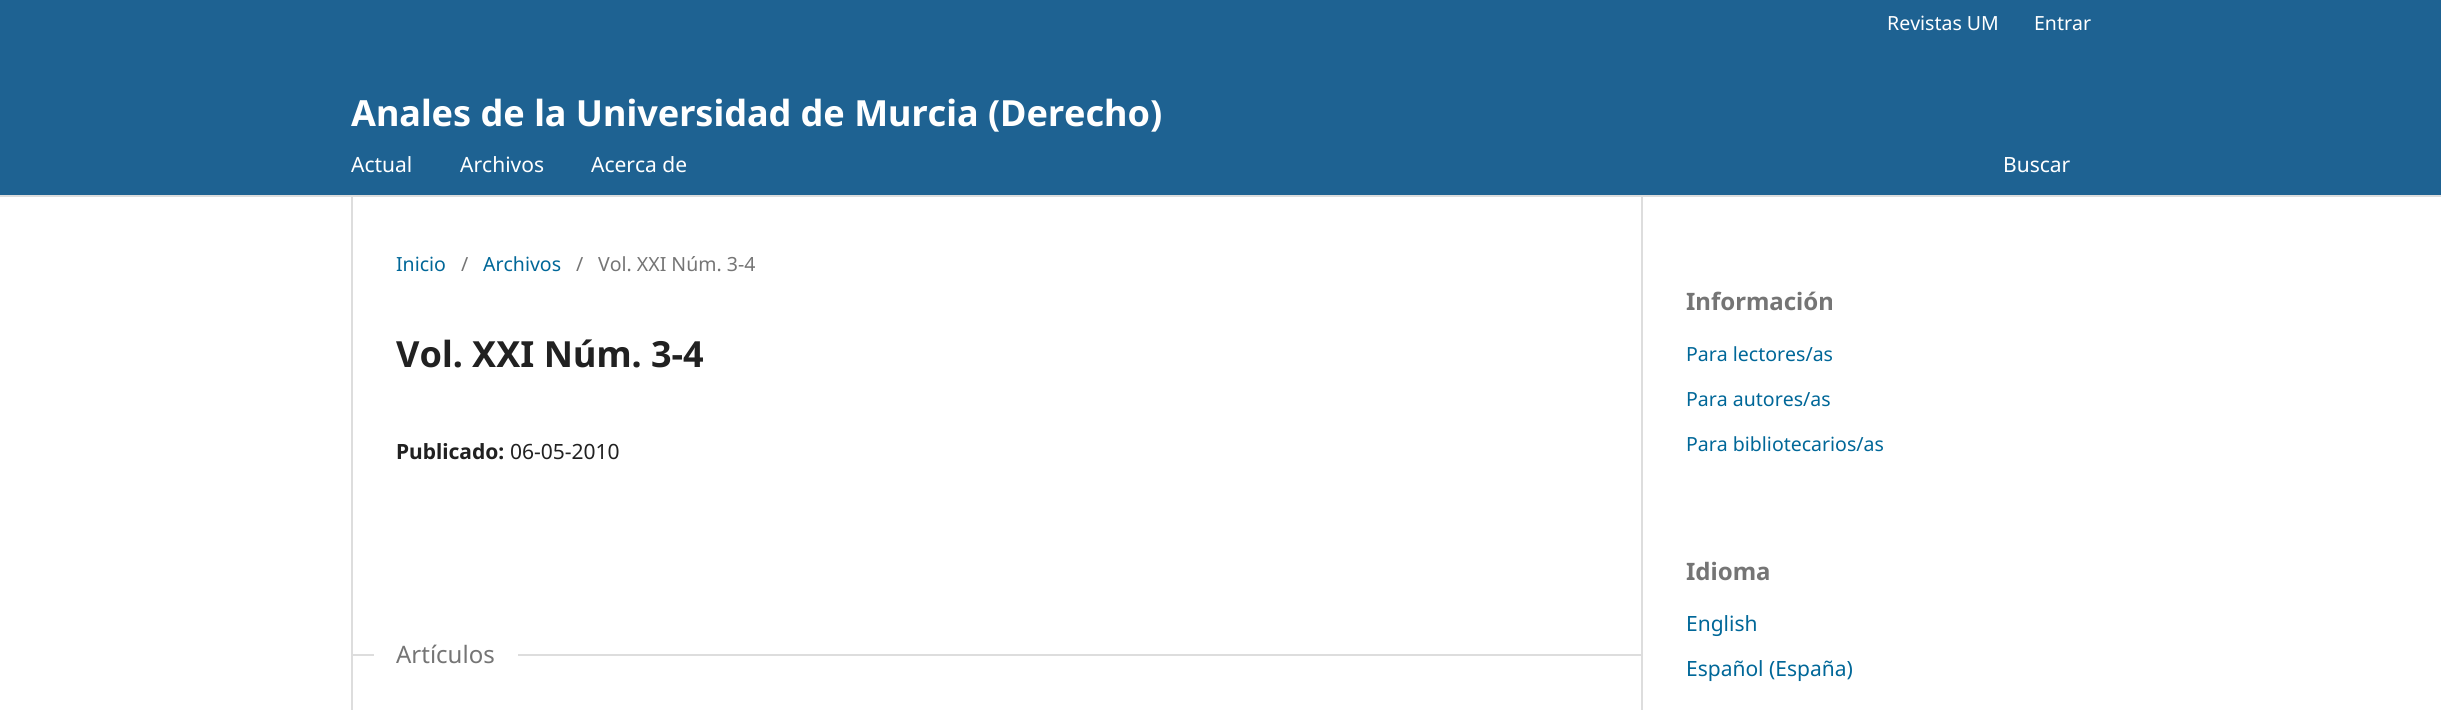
#include <cairo.h>
#include <math.h>
#include <stddef.h>


static void rgb(cairo_t *cr, int r, int g, int b)
{
	cairo_set_source_rgb(cr, r / 255.0, g / 255.0, b / 255.0);
}

static void face(cairo_t *cr, const char *family, double size, int italic, int bold)
{
	cairo_select_font_face(cr, family, italic ? CAIRO_FONT_SLANT_ITALIC : CAIRO_FONT_SLANT_NORMAL,
		bold ? CAIRO_FONT_WEIGHT_BOLD : CAIRO_FONT_WEIGHT_NORMAL);
	cairo_set_font_size(cr, size);
}

static void label(cairo_t *cr, double x, double y, const char *s)
{
	cairo_move_to(cr, x, y);
	cairo_show_text(cr, s);
}

static void rect(cairo_t *cr, double x, double y, double w, double h)
{
	cairo_rectangle(cr, x, y, w, h);
	cairo_fill(cr);
}

static void draw(cairo_t *cr) {
	rgb(cr, 255, 255, 255);
	cairo_paint(cr);
	rgb(cr, 30, 98, 146);
	rect(cr, 0, 0, 2441, 195);
	rgb(cr, 221, 221, 221);
	rect(cr, 0, 195, 2441, 2);
	face(cr, "Noto Sans", 19.5, 0, 0);
	rgb(cr, 255, 255, 255);
	label(cr, 1887, 30, "Revistas UM");
	label(cr, 2034, 30, "Entrar");
	face(cr, "Noto Sans", 21, 0, 0);
	label(cr, 351, 172, "Actual");
	label(cr, 460, 172, "Archivos");
	label(cr, 591, 172, "Acerca de");
	label(cr, 2003, 172, "Buscar");
	face(cr, "Noto Sans", 36, 0, 1);
	label(cr, 351, 126, "Anales de la Universidad de Murcia (Derecho)");
	rgb(cr, 221, 221, 221);
	rect(cr, 351, 197, 2, 513);
	face(cr, "Noto Sans", 19.5, 0, 0);
	rgb(cr, 0, 103, 152);
	label(cr, 396, 271, "Inicio");
	rgb(cr, 117, 117, 117);
	label(cr, 461, 271, "/");
	rgb(cr, 0, 103, 152);
	label(cr, 483, 271, "Archivos");
	rgb(cr, 117, 117, 117);
	label(cr, 576, 271, "/");
	label(cr, 598, 271, "Vol. XXI Núm. 3-4");
	face(cr, "Noto Sans", 36, 0, 1);
	rgb(cr, 33, 33, 33);
	label(cr, 396, 367, "Vol. XXI Núm. 3-4");
	face(cr, "Noto Sans", 21, 0, 1);
	label(cr, 396, 459, "Publicado:");
	face(cr, "Noto Sans", 21, 0, 0);
	label(cr, 510, 459, "06-05-2010");
	rgb(cr, 221, 221, 221);
	rect(cr, 351, 654, 1290, 2);
	rgb(cr, 255, 255, 255);
	rect(cr, 374, 654, 144, 2);
	face(cr, "Noto Sans", 24, 0, 0);
	rgb(cr, 117, 117, 117);
	label(cr, 396, 663, "Artículos");
	rgb(cr, 221, 221, 221);
	rect(cr, 1641, 197, 2, 513);
	face(cr, "Noto Sans", 24, 0, 1);
	rgb(cr, 117, 117, 117);
	label(cr, 1686, 310, "Información");
	face(cr, "Noto Sans", 19.5, 0, 0);
	rgb(cr, 0, 103, 152);
	label(cr, 1686, 361, "Para lectores/as");
	label(cr, 1686, 406, "Para autores/as");
	label(cr, 1686, 451, "Para bibliotecarios/as");
	face(cr, "Noto Sans", 24, 0, 1);
	rgb(cr, 117, 117, 117);
	label(cr, 1686, 580, "Idioma");
	face(cr, "Noto Sans", 21, 0, 0);
	rgb(cr, 0, 103, 152);
	label(cr, 1686, 631, "English");
	label(cr, 1686, 676, "Español (España)");
}

int main(void) {
	cairo_surface_t *surface = cairo_image_surface_create(CAIRO_FORMAT_RGB24, 2441, 710);
	cairo_t *cr = cairo_create(surface);
	cairo_font_options_t *options = cairo_font_options_create();
	cairo_font_options_set_hint_metrics(options, CAIRO_HINT_METRICS_OFF);
	cairo_font_options_set_hint_style(options, CAIRO_HINT_STYLE_NONE);
	cairo_set_font_options(cr, options);
	cairo_set_miter_limit(cr, 4);
	draw(cr);
	cairo_surface_write_to_png(surface, "render.png");
	cairo_font_options_destroy(options);
	cairo_destroy(cr);
	cairo_surface_destroy(surface);
	return 0;
}
